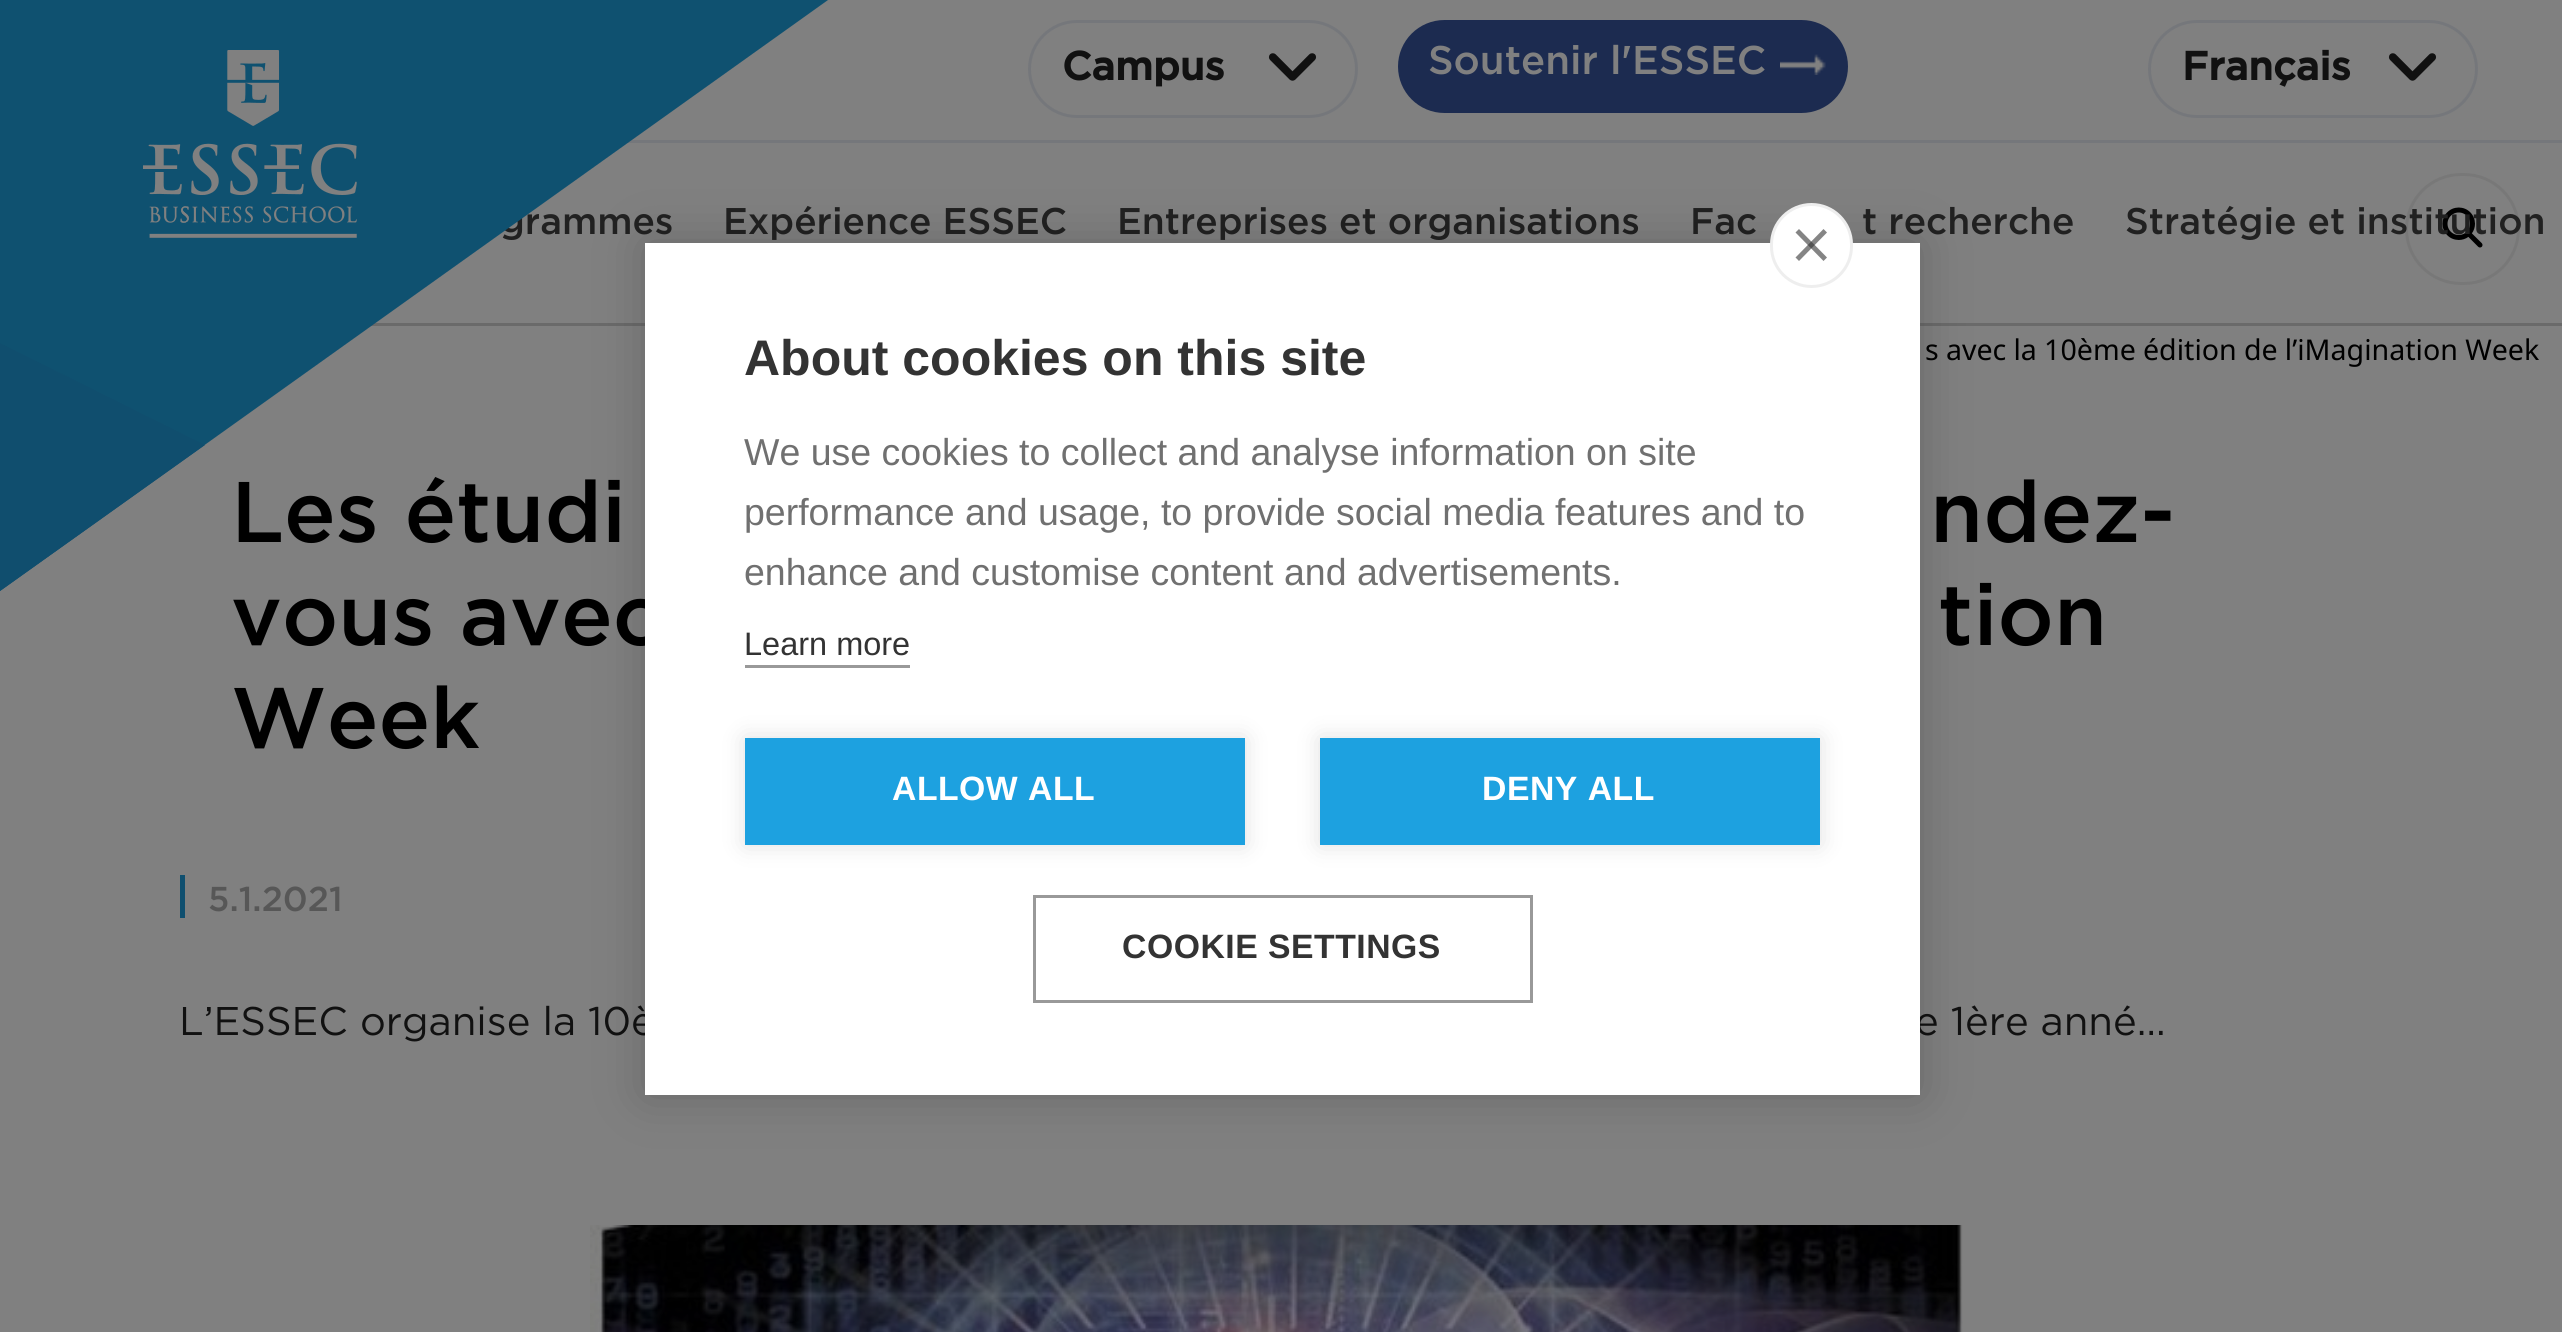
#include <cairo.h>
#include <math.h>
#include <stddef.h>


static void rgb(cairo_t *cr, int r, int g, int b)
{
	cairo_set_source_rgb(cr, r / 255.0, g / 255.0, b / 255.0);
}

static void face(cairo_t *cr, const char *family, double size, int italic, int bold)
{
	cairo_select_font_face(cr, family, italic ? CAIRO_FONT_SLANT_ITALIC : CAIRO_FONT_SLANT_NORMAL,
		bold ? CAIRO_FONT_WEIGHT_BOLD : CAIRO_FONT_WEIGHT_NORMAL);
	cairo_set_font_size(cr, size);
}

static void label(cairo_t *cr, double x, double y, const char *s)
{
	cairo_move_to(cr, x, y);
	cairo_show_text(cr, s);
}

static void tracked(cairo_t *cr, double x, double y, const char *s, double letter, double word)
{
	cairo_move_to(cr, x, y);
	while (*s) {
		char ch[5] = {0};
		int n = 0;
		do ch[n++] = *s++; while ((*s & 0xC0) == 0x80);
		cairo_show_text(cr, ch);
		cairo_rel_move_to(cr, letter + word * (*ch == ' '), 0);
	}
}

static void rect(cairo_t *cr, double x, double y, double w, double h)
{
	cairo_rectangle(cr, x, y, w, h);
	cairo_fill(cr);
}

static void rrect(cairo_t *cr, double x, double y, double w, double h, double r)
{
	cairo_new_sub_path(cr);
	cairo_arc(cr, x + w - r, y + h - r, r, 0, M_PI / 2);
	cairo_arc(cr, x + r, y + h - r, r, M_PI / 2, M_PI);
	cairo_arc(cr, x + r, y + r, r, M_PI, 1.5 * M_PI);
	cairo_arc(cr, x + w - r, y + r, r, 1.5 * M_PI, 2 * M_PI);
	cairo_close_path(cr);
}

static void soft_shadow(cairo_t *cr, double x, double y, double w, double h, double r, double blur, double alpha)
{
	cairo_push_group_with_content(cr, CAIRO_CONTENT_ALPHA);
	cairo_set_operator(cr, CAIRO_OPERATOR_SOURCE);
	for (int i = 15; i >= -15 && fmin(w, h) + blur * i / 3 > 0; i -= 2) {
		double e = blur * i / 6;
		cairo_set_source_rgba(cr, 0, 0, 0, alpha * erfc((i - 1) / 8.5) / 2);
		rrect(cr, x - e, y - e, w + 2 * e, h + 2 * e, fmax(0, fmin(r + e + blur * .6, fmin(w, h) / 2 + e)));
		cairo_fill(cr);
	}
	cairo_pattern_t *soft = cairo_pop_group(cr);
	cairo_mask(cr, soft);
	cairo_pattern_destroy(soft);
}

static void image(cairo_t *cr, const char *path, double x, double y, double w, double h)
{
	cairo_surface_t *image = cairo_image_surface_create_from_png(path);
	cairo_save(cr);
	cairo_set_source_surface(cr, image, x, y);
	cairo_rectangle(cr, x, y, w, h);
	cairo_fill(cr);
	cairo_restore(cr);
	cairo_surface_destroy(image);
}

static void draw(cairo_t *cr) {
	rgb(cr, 128, 128, 128);
	cairo_paint(cr);
	rgb(cr, 106, 106, 106);
	rect(cr, 371, 323, 2191, 3);
	rgb(cr, 117, 119, 123);
	rect(cr, 627, 140, 1935, 3);
	face(cr, "Gotham Medium", 37.1, 0, 0);
	rgb(cr, 33, 33, 33);
	label(cr, 500, 234, "grammes");
	label(cr, 723, 234, "Expérience ESSEC");
	face(cr, "Gotham Medium", 85.75, 0, 0);
	rgb(cr, 0, 0, 0);
	label(cr, 231, 542, "Les étudi");
	rgb(cr, 15, 81, 112);
	cairo_new_path(cr);
	cairo_move_to(cr, 0, 0);
	cairo_line_to(cr, 0, 591);
	cairo_line_to(cr, 828, 0);
	cairo_close_path(cr);
	cairo_fill(cr);
	image(cr, "image0.png", 143, 50, 214, 188);
	rgb(cr, 16, 78, 110);
	cairo_new_path(cr);
	cairo_move_to(cr, 0, 343);
	cairo_line_to(cr, 205, 445);
	cairo_line_to(cr, 0, 591);
	cairo_close_path(cr);
	cairo_fill(cr);
	rrect(cr, 1029.5, 21.5, 327, 95, 47.5);
	rgb(cr, 117, 119, 123);
	cairo_set_line_width(cr, 3);
	cairo_stroke(cr);
	face(cr, "Gotham", 40, 0, 1);
	rgb(cr, 17, 17, 17);
	label(cr, 1062, 80, "Campus");
	image(cr, "image1.png", 1268, 53, 49, 28);
	rgb(cr, 28, 43, 80);
	rrect(cr, 1398, 20, 450, 93, 46.5);
	cairo_fill(cr);
	face(cr, "Gotham Medium", 40, 0, 0);
	rgb(cr, 128, 128, 128);
	label(cr, 1428, 74, "Soutenir l'ESSEC");
	image(cr, "image2.png", 1780, 54, 46, 21);
	rrect(cr, 2149.5, 21.5, 327, 95, 47.5);
	rgb(cr, 117, 119, 123);
	cairo_stroke(cr);
	face(cr, "Gotham", 40, 0, 1);
	rgb(cr, 17, 17, 17);
	label(cr, 2182, 80, "Français");
	image(cr, "image1.png", 2388, 53, 49, 28);
	rrect(cr, 2406.5, 174.5, 112, 109, 54.5);
	rgb(cr, 120, 120, 120);
	cairo_stroke(cr);
	image(cr, "image3.png", 2442, 207, 41, 41);
	face(cr, "Gotham Medium", 37.1, 0, 0);
	rgb(cr, 33, 33, 33);
	label(cr, 1117, 234, "Entreprises et organisations");
	label(cr, 1690, 234, "Fac");
	label(cr, 1862, 234, "t recherche");
	label(cr, 2125, 234, "Stratégie et institution");
	face(cr, "Noto Sans", 28.6, 0, 0);
	rgb(cr, 0, 0, 0);
	tracked(cr, 1925, 360, "s avec la 10ème édition de l’iMagination Week", 0, -0.25);
	face(cr, "Gotham Medium", 85.75, 0, 0);
	label(cr, 1930, 542, "ndez-");
	tracked(cr, 231, 645, "vous avec", 0, -0.25);
	tracked(cr, 1938, 645, "tion", 0, -0.25);
	label(cr, 231, 748, "Week");
	rgb(cr, 15, 79, 111);
	rect(cr, 180, 875, 5, 43);
	face(cr, "Gotham Medium", 34.5, 0, 0);
	rgb(cr, 87, 87, 87);
	label(cr, 208, 911, "5.1.2021");
	face(cr, "Gotham", 40, 0, 0);
	rgb(cr, 17, 17, 17);
	label(cr, 179, 1035, "L’ESSEC organise la 10è");
	label(cr, 1915, 1035, "e 1ère anné…");
	image(cr, "image4.png", 590, 1225, 1373, 107);
	rgb(cr, 0, 0, 0);
	soft_shadow(cr, 645, 243, 1275, 852, 0, 25, 0.2);
	rgb(cr, 255, 255, 255);
	rect(cr, 645, 243, 1275, 852);
	rrect(cr, 1771.5, 204.5, 80, 82, 40);
	cairo_fill_preserve(cr);
	rgb(cr, 238, 238, 238);
	cairo_stroke(cr);
	rgb(cr, 133, 133, 133);
	cairo_new_path(cr);
	cairo_move_to(cr, 1795.5, 257.5);
	cairo_line_to(cr, 1823.5, 229);
	cairo_line_to(cr, 1827, 232.5);
	cairo_line_to(cr, 1799, 261);
	cairo_close_path(cr);
	cairo_fill(cr);
	cairo_set_source_rgba(cr, 0.2, 0.2, 0.2, 0.6);
	cairo_new_path(cr);
	cairo_move_to(cr, 1799, 229);
	cairo_line_to(cr, 1827, 257.5);
	cairo_line_to(cr, 1823.5, 261);
	cairo_line_to(cr, 1795.5, 232.5);
	cairo_close_path(cr);
	cairo_fill(cr);
	face(cr, "Liberation Sans", 50, 0, 1);
	rgb(cr, 51, 51, 51);
	label(cr, 744, 375, "About cookies on this site");
	face(cr, "Liberation Sans", 37.5, 0, 0);
	rgb(cr, 112, 112, 112);
	label(cr, 744, 465, "We use cookies to collect and analyse information on site");
	label(cr, 744, 525, "performance and usage, to provide social media features and to");
	label(cr, 744, 585, "enhance and customise content and advertisements.");
	face(cr, "Liberation Sans", 32.5, 0, 0);
	rgb(cr, 51, 51, 51);
	label(cr, 744, 655, "Learn more");
	rgb(cr, 153, 153, 153);
	rect(cr, 745, 665, 165, 3);
	rgb(cr, 0, 0, 0);
	soft_shadow(cr, 745, 738, 500, 107, 0, 12.5, 0.12);
	rgb(cr, 29, 161, 224);
	rect(cr, 745, 738, 500, 107);
	face(cr, "Liberation Sans", 33.75, 0, 1);
	rgb(cr, 255, 255, 255);
	tracked(cr, 892, 800, "ALLOW ALL", 0.5, 0);
	rgb(cr, 0, 0, 0);
	soft_shadow(cr, 1320, 738, 500, 107, 0, 12.5, 0.12);
	rgb(cr, 29, 161, 224);
	rect(cr, 1320, 738, 500, 107);
	rgb(cr, 255, 255, 255);
	tracked(cr, 1482, 800, "DENY ALL", 0.5, 0);
	cairo_rectangle(cr, 1034.5, 896.5, 497, 105);
	rgb(cr, 153, 153, 153);
	cairo_stroke(cr);
	rgb(cr, 51, 51, 51);
	tracked(cr, 1122, 958, "COOKIE SETTINGS", 0.5, 0);
}

int main(void) {
	cairo_surface_t *surface = cairo_image_surface_create(CAIRO_FORMAT_RGB24, 2562, 1332);
	cairo_t *cr = cairo_create(surface);
	cairo_font_options_t *options = cairo_font_options_create();
	cairo_font_options_set_hint_metrics(options, CAIRO_HINT_METRICS_OFF);
	cairo_font_options_set_hint_style(options, CAIRO_HINT_STYLE_NONE);
	cairo_set_font_options(cr, options);
	cairo_set_miter_limit(cr, 4);
	draw(cr);
	cairo_surface_write_to_png(surface, "render.png");
	cairo_font_options_destroy(options);
	cairo_destroy(cr);
	cairo_surface_destroy(surface);
	return 0;
}
